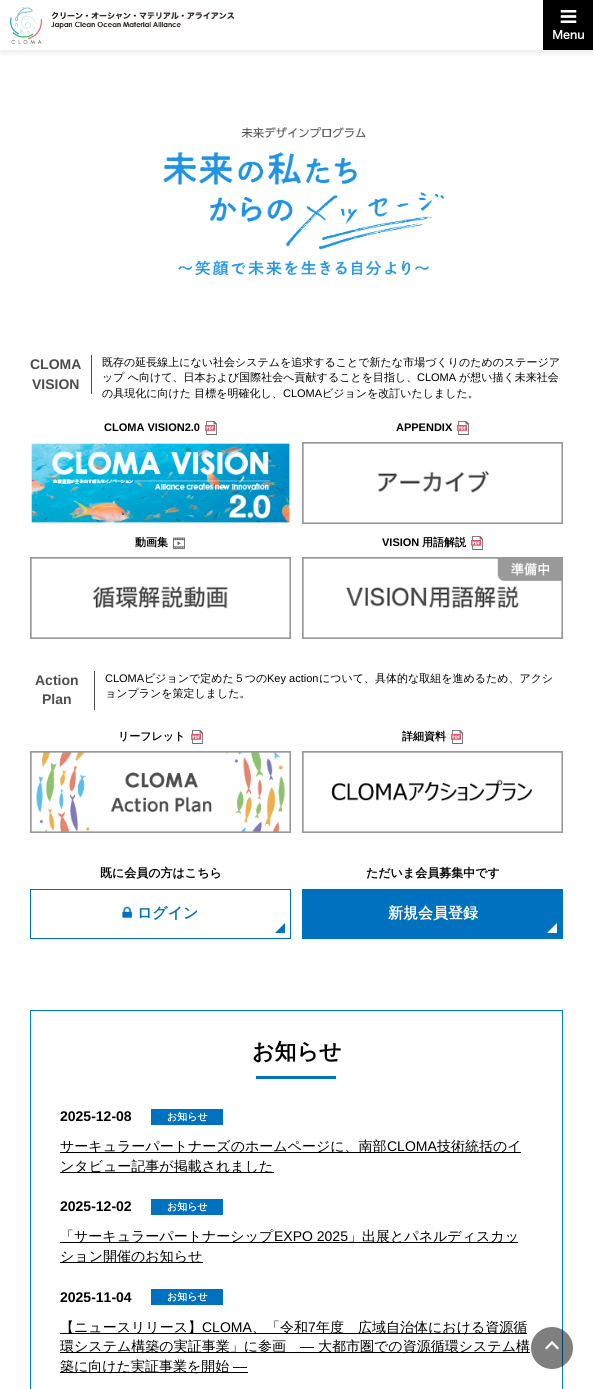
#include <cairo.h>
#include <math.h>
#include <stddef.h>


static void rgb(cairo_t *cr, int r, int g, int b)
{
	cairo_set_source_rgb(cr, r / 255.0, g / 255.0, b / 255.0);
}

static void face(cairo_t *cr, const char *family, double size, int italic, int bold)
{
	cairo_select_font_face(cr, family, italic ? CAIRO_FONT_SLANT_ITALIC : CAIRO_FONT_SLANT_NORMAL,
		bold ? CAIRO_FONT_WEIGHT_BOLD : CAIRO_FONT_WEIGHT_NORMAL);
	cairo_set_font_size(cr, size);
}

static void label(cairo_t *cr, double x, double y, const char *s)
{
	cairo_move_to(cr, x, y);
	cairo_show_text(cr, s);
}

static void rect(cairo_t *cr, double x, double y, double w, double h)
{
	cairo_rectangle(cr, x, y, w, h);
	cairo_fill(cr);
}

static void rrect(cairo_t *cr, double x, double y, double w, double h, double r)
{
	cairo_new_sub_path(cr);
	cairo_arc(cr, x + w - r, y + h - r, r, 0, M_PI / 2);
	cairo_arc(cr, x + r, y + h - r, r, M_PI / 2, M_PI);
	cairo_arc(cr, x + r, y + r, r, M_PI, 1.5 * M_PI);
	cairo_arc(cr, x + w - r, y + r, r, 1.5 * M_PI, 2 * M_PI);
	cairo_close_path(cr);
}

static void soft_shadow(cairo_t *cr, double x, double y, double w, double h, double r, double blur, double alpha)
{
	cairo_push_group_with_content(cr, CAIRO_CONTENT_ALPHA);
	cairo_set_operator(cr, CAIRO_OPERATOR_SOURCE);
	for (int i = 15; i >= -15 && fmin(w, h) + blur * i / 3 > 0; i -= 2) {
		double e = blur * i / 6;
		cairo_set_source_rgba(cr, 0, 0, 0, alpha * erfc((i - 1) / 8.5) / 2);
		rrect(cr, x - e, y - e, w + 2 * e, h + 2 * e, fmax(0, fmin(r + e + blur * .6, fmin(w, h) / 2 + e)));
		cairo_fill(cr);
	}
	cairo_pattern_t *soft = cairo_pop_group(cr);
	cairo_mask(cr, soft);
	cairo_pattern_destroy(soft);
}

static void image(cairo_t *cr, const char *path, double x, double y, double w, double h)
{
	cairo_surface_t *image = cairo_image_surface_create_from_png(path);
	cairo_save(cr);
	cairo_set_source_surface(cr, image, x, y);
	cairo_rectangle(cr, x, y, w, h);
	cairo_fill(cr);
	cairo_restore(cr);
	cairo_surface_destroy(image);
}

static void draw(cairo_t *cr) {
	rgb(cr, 255, 255, 255);
	cairo_paint(cr);
	cairo_save(cr);
	cairo_rectangle(cr, 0, 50, 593, 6);
	cairo_clip(cr);
	rgb(cr, 66, 66, 66);
	soft_shadow(cr, 0, 3, 593, 50, 0, 3, 0.1);
	cairo_restore(cr);
	image(cr, "image0.png", 10, 7, 225, 37);
	rgb(cr, 0, 0, 0);
	rect(cr, 543, 0, 50, 50);
	image(cr, "image1.png", 553, 10, 31, 29);
	image(cr, "image2.png", 163, 127, 282, 149);
	rgb(cr, 77, 77, 77);
	rect(cr, 91, 355, 1, 39);
	face(cr, "Liberation Sans", 14, 0, 1);
	label(cr, 30, 369, "CLOMA");
	label(cr, 32, 389, "VISION");
	face(cr, "WenQuanYi Zen Hei Medium", 11, 0, 0);
	rgb(cr, 0, 0, 0);
	label(cr, 102, 366, "既存の延長線上にない社会システムを追求することで新たな市場づくりのためのステージア");
	label(cr, 102, 381, "ップ へ向けて、日本および国際社会へ貢献することを目指し、");
	face(cr, "Liberation Sans", 11, 0, 0);
	label(cr, 417, 381, "CLOMA");
	face(cr, "WenQuanYi Zen Hei Medium", 11, 0, 0);
	label(cr, 459, 381, "が想い描く未来社会");
	label(cr, 102, 397, "の具現化に向けた 目標を明確化し、");
	face(cr, "Liberation Sans", 11, 0, 0);
	label(cr, 283, 397, "CLOMA");
	face(cr, "WenQuanYi Zen Hei Medium", 11, 0, 0);
	label(cr, 322, 397, "ビジョンを改訂いたしました。");
	face(cr, "Liberation Sans", 11, 0, 1);
	label(cr, 104, 431, "CLOMA VISION2.0");
	image(cr, "image3.png", 205, 421, 12, 14);
	image(cr, "image4.png", 30, 442, 261, 81);
	label(cr, 396, 431, "APPENDIX");
	image(cr, "image3.png", 457, 421, 12, 14);
	image(cr, "image5.png", 302, 442, 261, 82);
	face(cr, "WenQuanYi Zen Hei", 11, 0, 1);
	label(cr, 135, 546, "動画集");
	image(cr, "image6.png", 173, 537, 12, 12);
	image(cr, "image7.png", 30, 557, 261, 82);
	face(cr, "Liberation Sans", 11, 0, 1);
	label(cr, 382, 546, "VISION");
	face(cr, "WenQuanYi Zen Hei", 11, 0, 1);
	label(cr, 422, 546, "用語解説");
	image(cr, "image3.png", 471, 536, 12, 14);
	image(cr, "image8.png", 302, 557, 261, 82);
	rgb(cr, 77, 77, 77);
	rect(cr, 94, 671, 1, 39);
	face(cr, "Liberation Sans", 14, 0, 1);
	label(cr, 35, 685, "Action");
	label(cr, 42, 704, "Plan");
	face(cr, "Liberation Sans", 11, 0, 0);
	rgb(cr, 0, 0, 0);
	label(cr, 105, 682, "CLOMA");
	face(cr, "WenQuanYi Zen Hei Medium", 11, 0, 0);
	label(cr, 144, 682, "ビジョンで定めた５つの");
	face(cr, "Liberation Sans", 11, 0, 0);
	label(cr, 267, 682, "Key action");
	face(cr, "WenQuanYi Zen Hei Medium", 11, 0, 0);
	label(cr, 319, 682, "について、具体的な取組を進めるため、アクシ");
	label(cr, 105, 697, "ョンプランを策定しました。");
	face(cr, "WenQuanYi Zen Hei", 11, 0, 1);
	label(cr, 118, 740, "リーフレット");
	image(cr, "image3.png", 191, 730, 12, 14);
	image(cr, "image9.png", 30, 751, 261, 82);
	label(cr, 402, 740, "詳細資料");
	image(cr, "image3.png", 451, 730, 12, 14);
	image(cr, "image10.png", 302, 751, 261, 82);
	face(cr, "WenQuanYi Zen Hei", 12, 0, 1);
	label(cr, 100, 877, "既に会員の方はこちら");
	cairo_rectangle(cr, 30.5, 889.5, 260, 49);
	rgb(cr, 0, 113, 190);
	cairo_set_line_width(cr, 1);
	cairo_stroke(cr);
	image(cr, "image11.png", 122, 906, 10, 13);
	face(cr, "WenQuanYi Zen Hei", 15, 0, 1);
	label(cr, 137, 918, "ログイン");
	cairo_new_path(cr);
	cairo_move_to(cr, 285, 933);
	cairo_line_to(cr, 275, 933);
	cairo_line_to(cr, 285, 923);
	cairo_close_path(cr);
	cairo_fill(cr);
	face(cr, "WenQuanYi Zen Hei", 12, 0, 1);
	rgb(cr, 0, 0, 0);
	label(cr, 366, 877, "ただいま会員募集中です");
	rgb(cr, 0, 113, 190);
	rect(cr, 302, 889, 261, 50);
	face(cr, "WenQuanYi Zen Hei", 15, 0, 1);
	rgb(cr, 255, 255, 255);
	label(cr, 388, 918, "新規会員登録");
	cairo_new_path(cr);
	cairo_move_to(cr, 557, 933);
	cairo_line_to(cr, 547, 933);
	cairo_line_to(cr, 557, 923);
	cairo_close_path(cr);
	cairo_fill(cr);
	cairo_rectangle(cr, 30.5, 1010.5, 532, 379);
	rgb(cr, 0, 128, 199);
	cairo_stroke(cr);
	face(cr, "WenQuanYi Zen Hei", 22, 0, 1);
	rgb(cr, 0, 0, 0);
	label(cr, 252, 1059, "お知らせ");
	rgb(cr, 0, 113, 190);
	rect(cr, 256, 1076, 80, 3);
	face(cr, "Liberation Sans", 14, 0, 1);
	rgb(cr, 0, 0, 0);
	label(cr, 60, 1121, "2025-12-08");
	rgb(cr, 0, 113, 190);
	rect(cr, 151, 1109, 72, 16);
	face(cr, "WenQuanYi Zen Hei", 10, 0, 1);
	rgb(cr, 255, 255, 255);
	label(cr, 167, 1120, "お知らせ");
	rgb(cr, 0, 0, 0);
	rect(cr, 60, 1152, 461, 1);
	face(cr, "WenQuanYi Zen Hei Medium", 14, 0, 0);
	label(cr, 60, 1151, "サーキュラーパートナーズのホームページに、南部");
	face(cr, "Liberation Sans", 14, 0, 0);
	label(cr, 387, 1151, "CLOMA");
	face(cr, "WenQuanYi Zen Hei Medium", 14, 0, 0);
	label(cr, 437, 1151, "技術統括のイ");
	rect(cr, 60, 1172, 214, 1);
	label(cr, 60, 1171, "ンタビュー記事が掲載されました");
	face(cr, "Liberation Sans", 14, 0, 1);
	label(cr, 60, 1211, "2025-12-02");
	rgb(cr, 0, 113, 190);
	rect(cr, 151, 1199, 72, 16);
	face(cr, "WenQuanYi Zen Hei", 10, 0, 1);
	rgb(cr, 255, 255, 255);
	label(cr, 167, 1210, "お知らせ");
	rgb(cr, 0, 0, 0);
	rect(cr, 60, 1242, 458, 1);
	face(cr, "WenQuanYi Zen Hei Medium", 14, 0, 0);
	label(cr, 60, 1241, "「サーキュラーパートナーシップ");
	face(cr, "Liberation Sans", 14, 0, 0);
	label(cr, 274, 1241, "EXPO 2025");
	face(cr, "WenQuanYi Zen Hei Medium", 14, 0, 0);
	label(cr, 348, 1241, "」出展とパネルディスカッ");
	rect(cr, 60, 1262, 143, 1);
	label(cr, 60, 1261, "ション開催のお知らせ");
	face(cr, "Liberation Sans", 14, 0, 1);
	label(cr, 60, 1302, "2025-11-04");
	rgb(cr, 0, 113, 190);
	rect(cr, 151, 1289, 72, 16);
	face(cr, "WenQuanYi Zen Hei", 10, 0, 1);
	rgb(cr, 255, 255, 255);
	label(cr, 167, 1300, "お知らせ");
	rgb(cr, 0, 0, 0);
	rect(cr, 60, 1333, 467, 1);
	face(cr, "WenQuanYi Zen Hei Medium", 14, 0, 0);
	label(cr, 60, 1332, "【ニュースリリース】");
	face(cr, "Liberation Sans", 14, 0, 0);
	label(cr, 202, 1332, "CLOMA");
	face(cr, "WenQuanYi Zen Hei Medium", 14, 0, 0);
	label(cr, 252, 1332, "、「令和");
	face(cr, "Liberation Sans", 14, 0, 0);
	label(cr, 308, 1332, "7");
	face(cr, "WenQuanYi Zen Hei Medium", 14, 0, 0);
	label(cr, 316, 1332, "年度　広域自治体における資源循");
	rect(cr, 60, 1352, 470, 1);
	label(cr, 60, 1351, "環システム構築の実証事業」に参画");
	face(cr, "Liberation Sans", 14, 0, 0);
	label(cr, 300, 1351, "―");
	face(cr, "WenQuanYi Zen Hei Medium", 14, 0, 0);
	label(cr, 318, 1351, "大都市圏での資源循環システム構");
	rect(cr, 60, 1372, 188, 1);
	label(cr, 60, 1371, "築に向けた実証事業を開始");
	face(cr, "Liberation Sans", 14, 0, 0);
	label(cr, 233, 1371, "―");
	cairo_set_source_rgba(cr, 0, 0, 0, 0.5);
	cairo_new_path(cr);
	cairo_arc(cr, 552, 1348, 21, 0, 2 * M_PI);
	cairo_fill(cr);
	rgb(cr, 255, 255, 255);
	cairo_new_path(cr);
	cairo_move_to(cr, 552, 1341);
	cairo_line_to(cr, 559, 1348);
	cairo_line_to(cr, 557.5, 1349.5);
	cairo_line_to(cr, 550.5, 1342.5);
	cairo_close_path(cr);
	cairo_fill(cr);
	cairo_new_path(cr);
	cairo_move_to(cr, 552, 1341);
	cairo_line_to(cr, 553.5, 1342.5);
	cairo_line_to(cr, 546.5, 1349.5);
	cairo_line_to(cr, 545, 1348);
	cairo_close_path(cr);
	cairo_fill(cr);
}

int main(void) {
	cairo_surface_t *surface = cairo_image_surface_create(CAIRO_FORMAT_RGB24, 593, 1389);
	cairo_t *cr = cairo_create(surface);
	cairo_font_options_t *options = cairo_font_options_create();
	cairo_font_options_set_hint_metrics(options, CAIRO_HINT_METRICS_OFF);
	cairo_font_options_set_hint_style(options, CAIRO_HINT_STYLE_NONE);
	cairo_set_font_options(cr, options);
	cairo_set_miter_limit(cr, 4);
	draw(cr);
	cairo_surface_write_to_png(surface, "render.png");
	cairo_font_options_destroy(options);
	cairo_destroy(cr);
	cairo_surface_destroy(surface);
	return 0;
}
